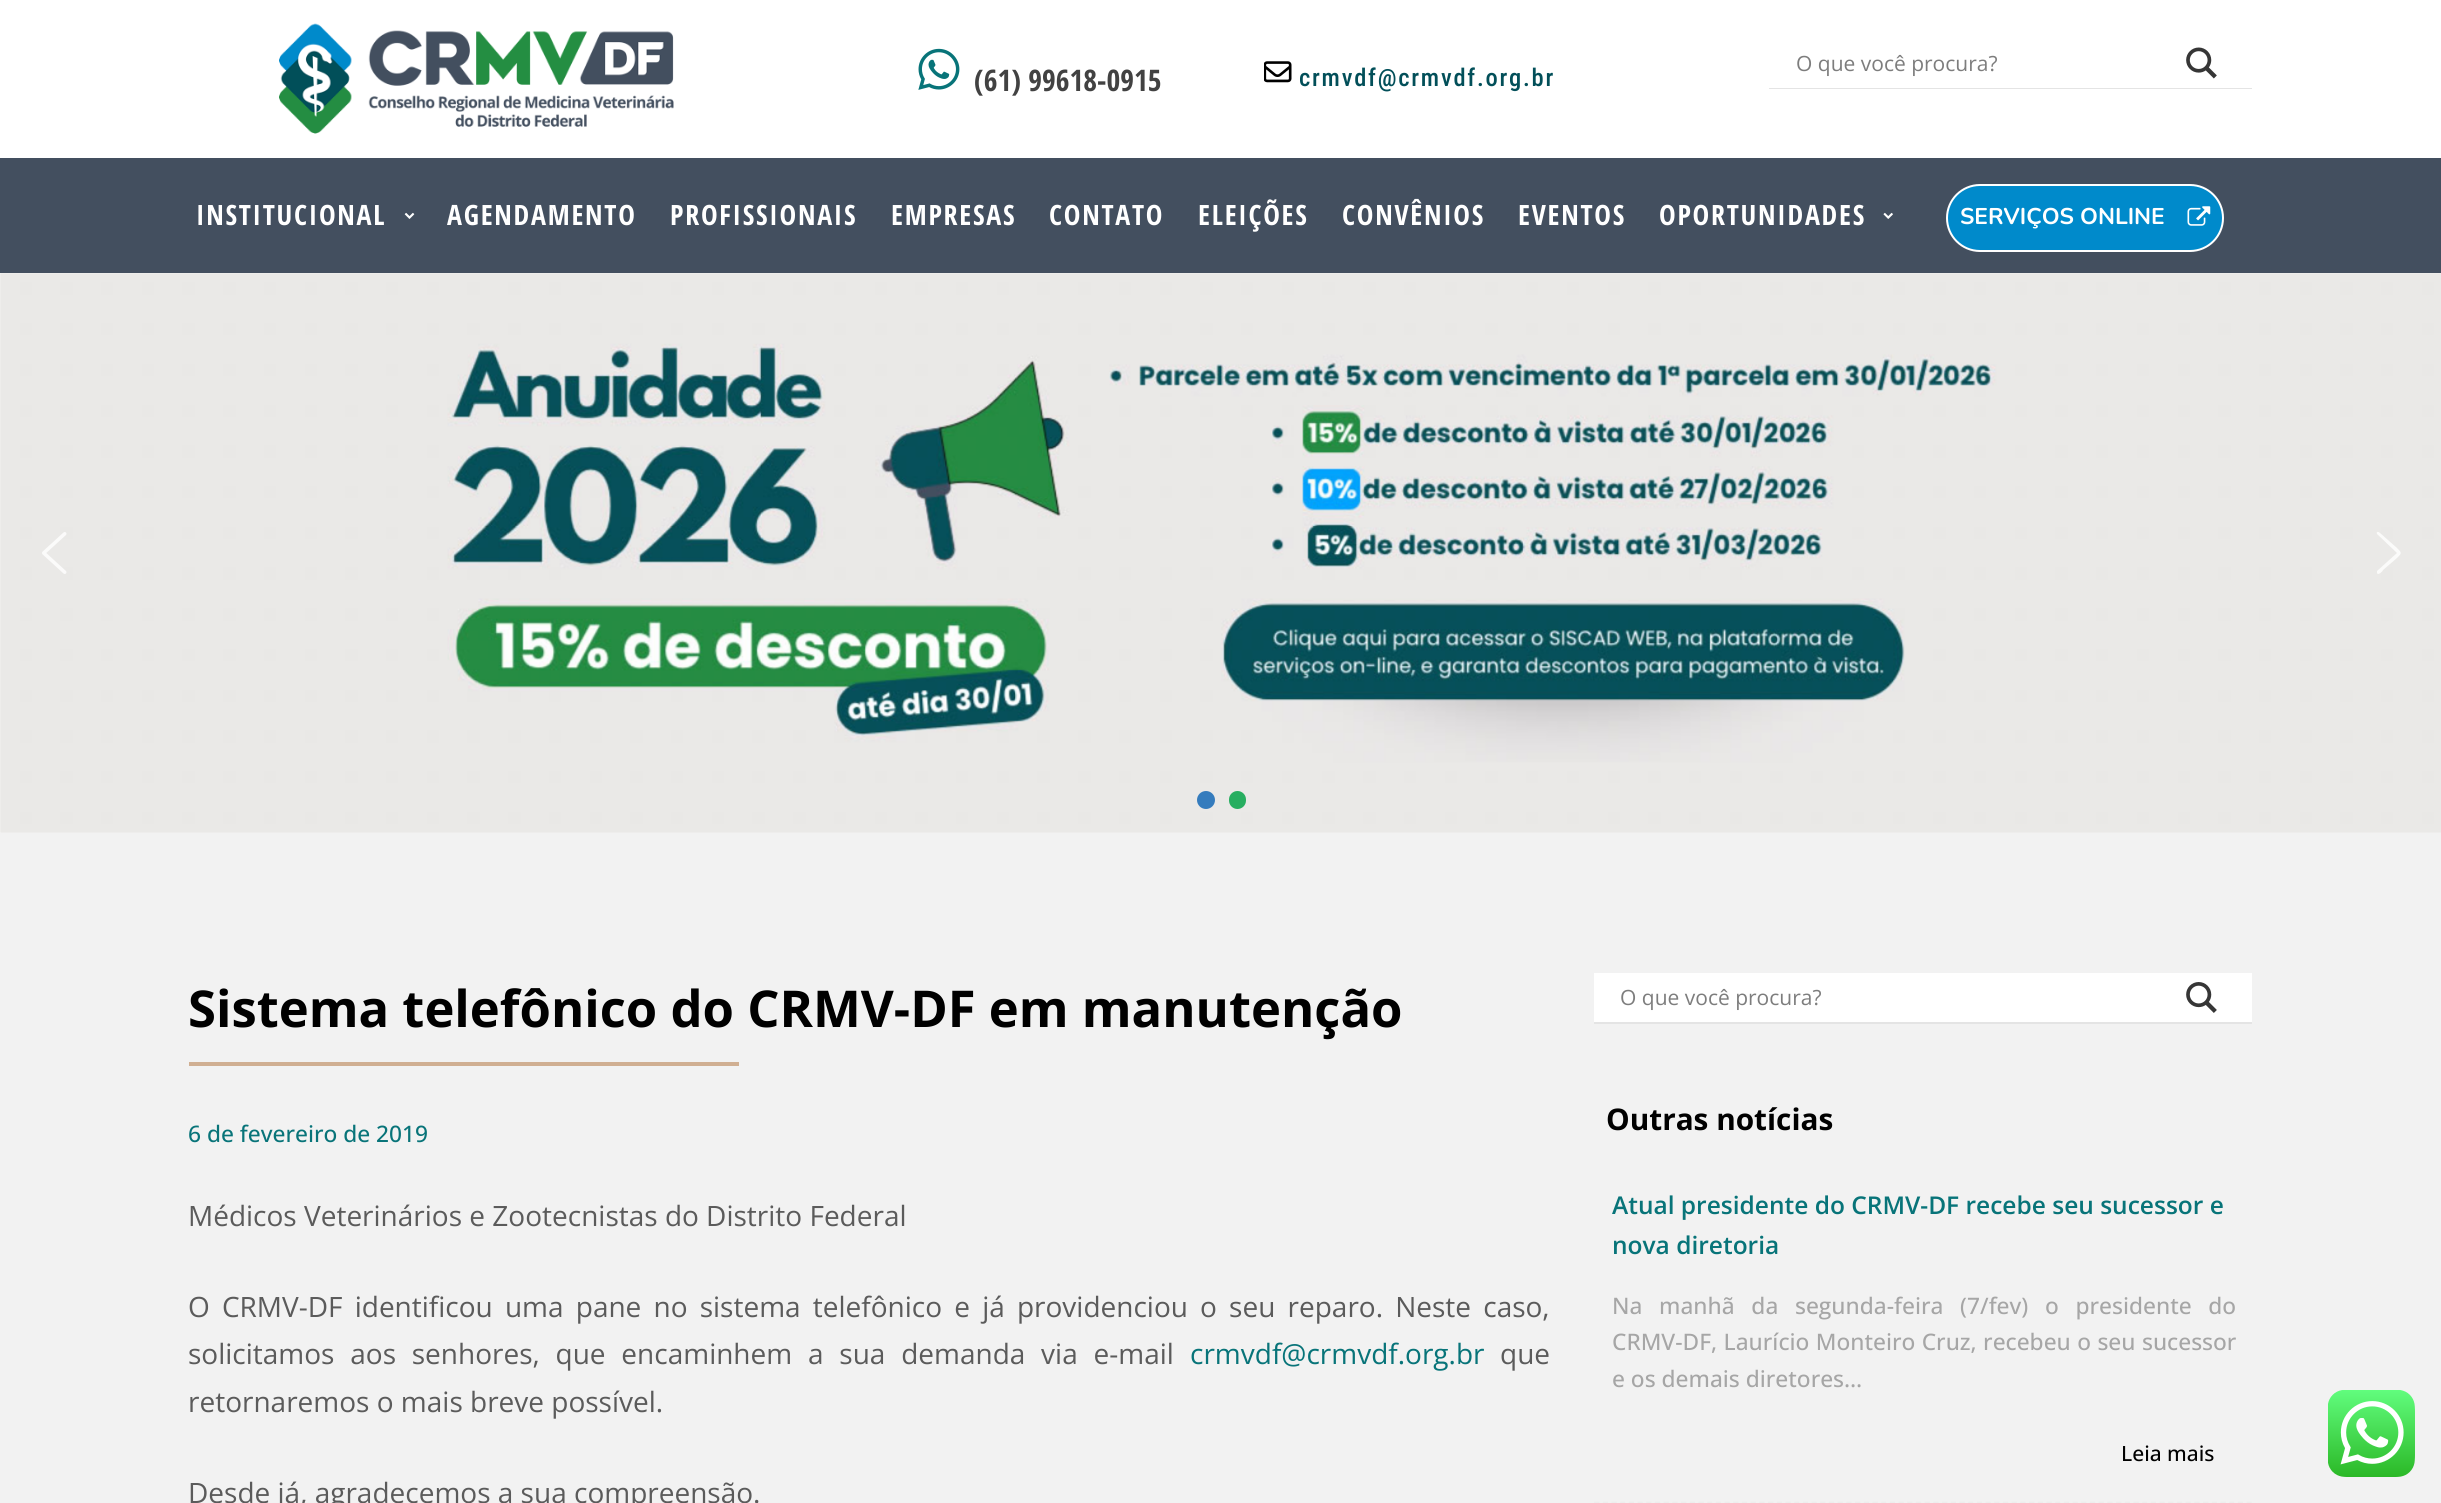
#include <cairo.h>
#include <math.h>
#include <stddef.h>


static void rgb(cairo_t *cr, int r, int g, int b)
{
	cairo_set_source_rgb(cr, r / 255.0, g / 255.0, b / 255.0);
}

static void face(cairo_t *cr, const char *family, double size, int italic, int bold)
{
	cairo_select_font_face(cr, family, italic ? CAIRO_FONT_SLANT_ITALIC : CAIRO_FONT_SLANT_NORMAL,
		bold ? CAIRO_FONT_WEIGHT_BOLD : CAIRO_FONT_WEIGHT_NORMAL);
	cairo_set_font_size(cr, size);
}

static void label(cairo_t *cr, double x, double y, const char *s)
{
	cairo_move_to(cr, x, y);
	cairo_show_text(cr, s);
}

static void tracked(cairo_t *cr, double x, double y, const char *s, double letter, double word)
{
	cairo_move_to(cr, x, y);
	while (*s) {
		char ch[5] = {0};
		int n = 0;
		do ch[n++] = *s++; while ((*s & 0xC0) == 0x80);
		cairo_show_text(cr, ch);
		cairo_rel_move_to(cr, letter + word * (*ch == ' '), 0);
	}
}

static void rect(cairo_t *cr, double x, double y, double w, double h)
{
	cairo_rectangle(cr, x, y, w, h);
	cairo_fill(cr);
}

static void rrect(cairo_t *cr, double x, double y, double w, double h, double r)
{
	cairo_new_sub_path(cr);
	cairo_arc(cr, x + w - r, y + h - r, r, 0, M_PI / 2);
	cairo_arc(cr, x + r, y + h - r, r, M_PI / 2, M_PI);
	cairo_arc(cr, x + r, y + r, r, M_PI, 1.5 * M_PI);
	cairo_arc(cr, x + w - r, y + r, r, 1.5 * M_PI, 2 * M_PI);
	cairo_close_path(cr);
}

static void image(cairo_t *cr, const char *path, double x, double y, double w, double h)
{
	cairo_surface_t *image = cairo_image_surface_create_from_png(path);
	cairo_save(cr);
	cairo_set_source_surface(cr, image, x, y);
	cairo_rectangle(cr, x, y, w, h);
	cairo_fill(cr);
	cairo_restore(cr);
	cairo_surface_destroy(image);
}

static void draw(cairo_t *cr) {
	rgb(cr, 255, 255, 255);
	cairo_paint(cr);
	image(cr, "image0.png", 279, 23, 395, 111);
	image(cr, "image1.png", 918, 48, 42, 42);
	face(cr, "Open Sans Condensed", 29.75, 0, 1);
	rgb(cr, 66, 66, 66);
	label(cr, 974, 91, "(61) 99618-0915");
	image(cr, "image2.png", 1264, 61, 28, 22);
	face(cr, "Roboto Condensed Medium", 24.5, 0, 0);
	rgb(cr, 2, 79, 89);
	tracked(cr, 1299, 86, "crmvdf@crmvdf.org.br", 1.75, 0);
	rgb(cr, 228, 228, 228);
	cairo_new_path(cr);
	cairo_move_to(cr, 1769, 40);
	cairo_line_to(cr, 1769, 89);
	cairo_line_to(cr, 2252, 89);
	cairo_line_to(cr, 2252, 88);
	cairo_line_to(cr, 1769, 88);
	cairo_close_path(cr);
	cairo_fill(cr);
	face(cr, "Open Sans", 21, 0, 0);
	rgb(cr, 125, 125, 125);
	label(cr, 1796, 71, "O que você procura?");
	image(cr, "image3.png", 2186, 47, 31, 32);
	rgb(cr, 67, 79, 95);
	rect(cr, 0, 158, 2441, 115);
	face(cr, "Open Sans Condensed", 28, 0, 1);
	rgb(cr, 255, 255, 255);
	tracked(cr, 196, 225, "INSTITUCIONAL", 1.75, 0);
	image(cr, "image4.png", 404, 212, 11, 7);
	tracked(cr, 447, 225, "AGENDAMENTO", 1.75, 0);
	tracked(cr, 670, 225, "PROFISSIONAIS", 1.75, 0);
	tracked(cr, 891, 225, "EMPRESAS", 1.75, 0);
	tracked(cr, 1049, 225, "CONTATO", 1.75, 0);
	tracked(cr, 1198, 225, "ELEIÇÕES", 1.75, 0);
	tracked(cr, 1342, 225, "CONVÊNIOS", 1.75, 0);
	tracked(cr, 1518, 225, "EVENTOS", 1.75, 0);
	tracked(cr, 1659, 225, "OPORTUNIDADES", 1.75, 0);
	image(cr, "image5.png", 1883, 212, 10, 7);
	rgb(cr, 0, 138, 203);
	rrect(cr, 1947, 185, 276, 66, 33);
	cairo_fill_preserve(cr);
	rgb(cr, 255, 255, 255);
	cairo_stroke(cr);
	face(cr, "Nunito", 22.75, 0, 1);
	label(cr, 1960, 224, "SERVIÇOS ONLINE");
	image(cr, "image6.png", 2187, 206, 24, 20);
	image(cr, "image7.png", 0, 273, 2441, 560);
	image(cr, "image8.png", 42, 532, 25, 42);
	rgb(cr, 251, 251, 250);
	cairo_set_fill_rule(cr, CAIRO_FILL_RULE_EVEN_ODD);
	cairo_new_path(cr);
	cairo_move_to(cr, 2380, 533);
	cairo_curve_to(cr, 2378, 531, 2376, 532, 2377, 534);
	cairo_line_to(cr, 2397, 553);
	cairo_line_to(cr, 2377, 571);
	cairo_line_to(cr, 2377, 573);
	cairo_curve_to(cr, 2378, 576, 2383, 571, 2383, 570);
	cairo_line_to(cr, 2397, 558);
	cairo_curve_to(cr, 2402, 553, 2402, 553, 2397, 548);
	cairo_close_path(cr);
	cairo_fill(cr);
	rgb(cr, 53, 124, 189);
	cairo_arc(cr, 1206, 800, 9, 0, 2 * M_PI);
	cairo_fill(cr);
	rgb(cr, 39, 174, 96);
	rrect(cr, 1229, 791, 17, 18, 8.5);
	cairo_fill(cr);
	rgb(cr, 242, 242, 242);
	rect(cr, 0, 833, 2441, 670);
	face(cr, "Open Sans", 50.75, 0, 1);
	rgb(cr, 0, 0, 0);
	label(cr, 188, 1027, "Sistema telefônico do CRMV-DF em manutenção");
	rgb(cr, 208, 175, 146);
	rect(cr, 189, 1062, 550, 4);
	face(cr, "Open Sans Medium", 22.75, 0, 0);
	rgb(cr, 8, 116, 121);
	label(cr, 188, 1142, "6 de fevereiro de 2019");
	face(cr, "Open Sans", 28, 0, 0);
	rgb(cr, 91, 91, 91);
	label(cr, 188, 1226, "Médicos Veterinários e Zootecnistas do Distrito Federal");
	tracked(cr, 188, 1317, "O CRMV-DF identificou uma pane no sistema telefônico e já providenciou o seu reparo. Neste caso,", 0, 4.9);
	tracked(cr, 188, 1364, "solicitamos aos senhores, que encaminhem a sua demanda via e-mail", 0, 8.5);
	rgb(cr, 8, 116, 121);
	label(cr, 1190, 1364, "crmvdf@crmvdf.org.br");
	rgb(cr, 91, 91, 91);
	label(cr, 1500, 1364, "que");
	label(cr, 188, 1412, "retornaremos o mais breve possível.");
	label(cr, 188, 1503, "Desde já, agradecemos a sua compreensão.");
	rgb(cr, 228, 228, 228);
	cairo_set_fill_rule(cr, CAIRO_FILL_RULE_WINDING);
	cairo_new_path(cr);
	cairo_move_to(cr, 1594, 975);
	cairo_line_to(cr, 1594, 1024);
	cairo_line_to(cr, 2252, 1024);
	cairo_line_to(cr, 2252, 1022);
	cairo_line_to(cr, 1594, 1022);
	cairo_close_path(cr);
	cairo_fill(cr);
	rgb(cr, 255, 255, 255);
	rect(cr, 1594, 973, 658, 49);
	face(cr, "Open Sans", 21, 0, 0);
	rgb(cr, 125, 125, 125);
	label(cr, 1620, 1005, "O que você procura?");
	image(cr, "image9.png", 2186, 982, 31, 31);
	face(cr, "Open Sans", 29.75, 0, 1);
	rgb(cr, 0, 0, 0);
	label(cr, 1606, 1130, "Outras notícias");
	face(cr, "Open Sans SemiBold", 24.5, 0, 0);
	rgb(cr, 8, 116, 121);
	label(cr, 1612, 1214, "Atual presidente do CRMV-DF recebe seu sucessor e");
	label(cr, 1612, 1254, "nova diretoria");
	face(cr, "Open Sans Medium", 22.75, 0, 0);
	rgb(cr, 166, 166, 166);
	tracked(cr, 1612, 1314, "Na manhã da segunda-feira (7/fev) o presidente do", 0, 10.75);
	tracked(cr, 1612, 1350, "CRMV-DF, Laurício Monteiro Cruz, recebeu o seu sucessor", 0, 0.5);
	label(cr, 1612, 1387, "e os demais diretores…");
	face(cr, "Open Sans Medium", 21, 0, 0);
	rgb(cr, 0, 0, 0);
	label(cr, 2121, 1461, "Leia mais");
	cairo_new_path(cr);
	cairo_move_to(cr, 1594, 1502.5);
	cairo_line_to(cr, 2252, 1502.5);
	rgb(cr, 237, 237, 237);
	cairo_set_line_width(cr, 1.8);
	cairo_set_dash(cr, (double[]){5.25, 3.45}, 2, 0);
	cairo_stroke(cr);
	image(cr, "image10.png", 2328, 1390, 87, 87);
}

int main(void) {
	cairo_surface_t *surface = cairo_image_surface_create(CAIRO_FORMAT_RGB24, 2441, 1503);
	cairo_t *cr = cairo_create(surface);
	cairo_font_options_t *options = cairo_font_options_create();
	cairo_font_options_set_hint_metrics(options, CAIRO_HINT_METRICS_OFF);
	cairo_font_options_set_hint_style(options, CAIRO_HINT_STYLE_NONE);
	cairo_set_font_options(cr, options);
	cairo_set_miter_limit(cr, 4);
	draw(cr);
	cairo_surface_write_to_png(surface, "render.png");
	cairo_font_options_destroy(options);
	cairo_destroy(cr);
	cairo_surface_destroy(surface);
	return 0;
}
